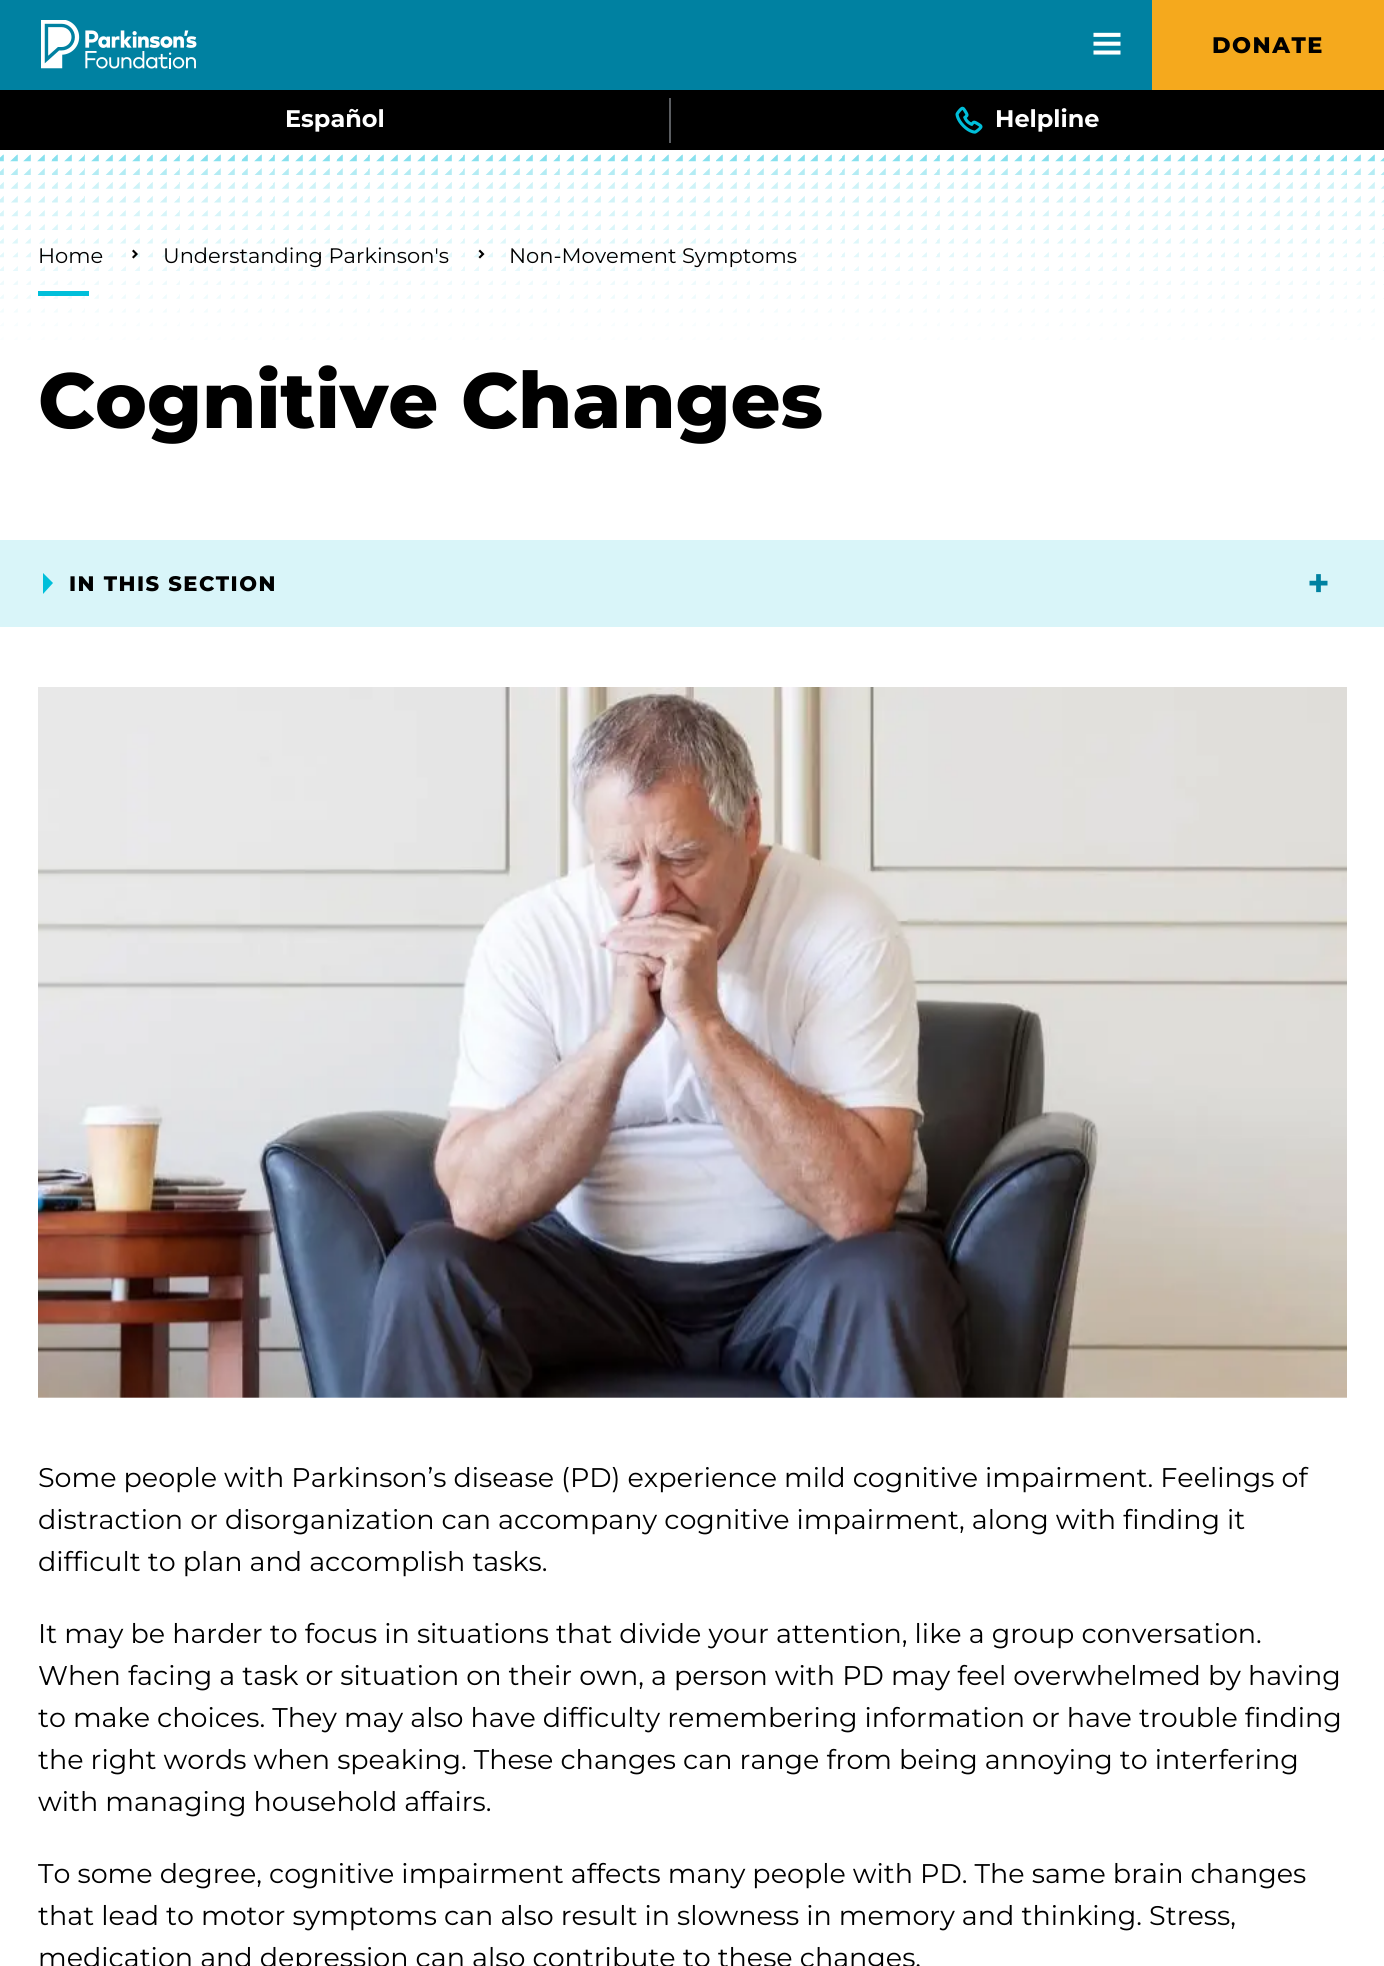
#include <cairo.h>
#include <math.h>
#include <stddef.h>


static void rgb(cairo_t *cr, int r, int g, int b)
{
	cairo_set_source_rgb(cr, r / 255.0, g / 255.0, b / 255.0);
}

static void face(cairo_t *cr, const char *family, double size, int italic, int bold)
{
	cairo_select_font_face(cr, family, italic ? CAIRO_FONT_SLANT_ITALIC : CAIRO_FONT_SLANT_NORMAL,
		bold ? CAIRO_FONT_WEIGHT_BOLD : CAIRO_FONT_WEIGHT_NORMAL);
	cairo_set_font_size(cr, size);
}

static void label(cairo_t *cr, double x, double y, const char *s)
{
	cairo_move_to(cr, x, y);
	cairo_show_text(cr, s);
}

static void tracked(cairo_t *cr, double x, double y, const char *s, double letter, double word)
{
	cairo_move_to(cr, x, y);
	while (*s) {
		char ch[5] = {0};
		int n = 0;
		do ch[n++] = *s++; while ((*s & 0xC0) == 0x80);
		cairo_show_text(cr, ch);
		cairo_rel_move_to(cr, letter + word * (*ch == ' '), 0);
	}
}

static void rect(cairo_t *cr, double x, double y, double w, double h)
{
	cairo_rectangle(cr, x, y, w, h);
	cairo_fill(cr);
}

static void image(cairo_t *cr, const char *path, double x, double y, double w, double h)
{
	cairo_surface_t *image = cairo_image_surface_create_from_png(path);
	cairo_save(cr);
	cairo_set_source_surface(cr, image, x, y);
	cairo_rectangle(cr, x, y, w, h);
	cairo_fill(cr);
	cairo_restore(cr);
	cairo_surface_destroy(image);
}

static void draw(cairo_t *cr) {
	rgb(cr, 255, 255, 255);
	cairo_paint(cr);
	rgb(cr, 0, 129, 161);
	rect(cr, 0, 0, 1152, 90);
	image(cr, "image0.png", 41, 20, 156, 49);
	image(cr, "image1.png", 1093, 32, 28, 23);
	rgb(cr, 245, 169, 29);
	rect(cr, 1152, 0, 232, 90);
	face(cr, "Montserrat Thin", 22.5, 0, 0);
	rgb(cr, 0, 0, 0);
	tracked(cr, 1212, 53, "DONATE", 1.5, 0);
	rect(cr, 0, 90, 1384, 60);
	face(cr, "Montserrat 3 Thin", 24, 0, 0);
	rgb(cr, 255, 255, 255);
	label(cr, 285, 127, "Español");
	rgb(cr, 90, 93, 97);
	rect(cr, 669, 98, 2, 45);
	image(cr, "image2.png", 955, 106, 28, 28);
	rgb(cr, 255, 255, 255);
	label(cr, 995, 127, "Helpline");
	image(cr, "image3.png", 0, 154, 1384, 186);
	face(cr, "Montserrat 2 Thin", 21, 0, 0);
	rgb(cr, 0, 0, 0);
	label(cr, 38, 263, "Home");
	image(cr, "image4.png", 132, 249, 6, 10);
	label(cr, 163, 263, "Understanding Parkinson's");
	image(cr, "image5.png", 478, 249, 7, 10);
	label(cr, 509, 263, "Non-Movement Symptoms");
	rgb(cr, 0, 191, 218);
	rect(cr, 38, 291, 51, 5);
	face(cr, "Montserrat Thin", 78, 0, 0);
	rgb(cr, 0, 0, 0);
	label(cr, 38, 428, "Cognitive Changes");
	rgb(cr, 217, 245, 249);
	rect(cr, 0, 540, 1384, 87);
	rgb(cr, 0, 191, 218);
	cairo_new_path(cr);
	cairo_move_to(cr, 43, 594);
	cairo_line_to(cr, 43, 573);
	cairo_line_to(cr, 53, 583);
	cairo_close_path(cr);
	cairo_fill(cr);
	face(cr, "Montserrat Thin", 21, 0, 0);
	rgb(cr, 0, 0, 0);
	tracked(cr, 69, 591, "IN THIS SECTION", 1.5, 0);
	image(cr, "image6.png", 1309, 574, 19, 19);
	image(cr, "image7.png", 38, 687, 1309, 711);
	face(cr, "Montserrat 2 Thin", 27, 0, 0);
	label(cr, 38, 1487, "Some people with Parkinson’s disease (PD) experience mild cognitive impairment. Feelings of");
	label(cr, 38, 1529, "distraction or disorganization can accompany cognitive impairment, along with finding it");
	label(cr, 38, 1571, "difficult to plan and accomplish tasks.");
	label(cr, 38, 1643, "It may be harder to focus in situations that divide your attention, like a group conversation.");
	label(cr, 38, 1685, "When facing a task or situation on their own, a person with PD may feel overwhelmed by having");
	label(cr, 38, 1727, "to make choices. They may also have difficulty remembering information or have trouble finding");
	label(cr, 38, 1769, "the right words when speaking. These changes can range from being annoying to interfering");
	label(cr, 38, 1811, "with managing household affairs.");
	label(cr, 38, 1883, "To some degree, cognitive impairment affects many people with PD. The same brain changes");
	label(cr, 38, 1925, "that lead to motor symptoms can also result in slowness in memory and thinking. Stress,");
	label(cr, 38, 1967, "medication and depression can also contribute to these changes.");
}

int main(void) {
	cairo_surface_t *surface = cairo_image_surface_create(CAIRO_FORMAT_RGB24, 1384, 1966);
	cairo_t *cr = cairo_create(surface);
	cairo_font_options_t *options = cairo_font_options_create();
	cairo_font_options_set_hint_metrics(options, CAIRO_HINT_METRICS_OFF);
	cairo_font_options_set_hint_style(options, CAIRO_HINT_STYLE_NONE);
	cairo_set_font_options(cr, options);
	cairo_set_miter_limit(cr, 4);
	draw(cr);
	cairo_surface_write_to_png(surface, "render.png");
	cairo_font_options_destroy(options);
	cairo_destroy(cr);
	cairo_surface_destroy(surface);
	return 0;
}
